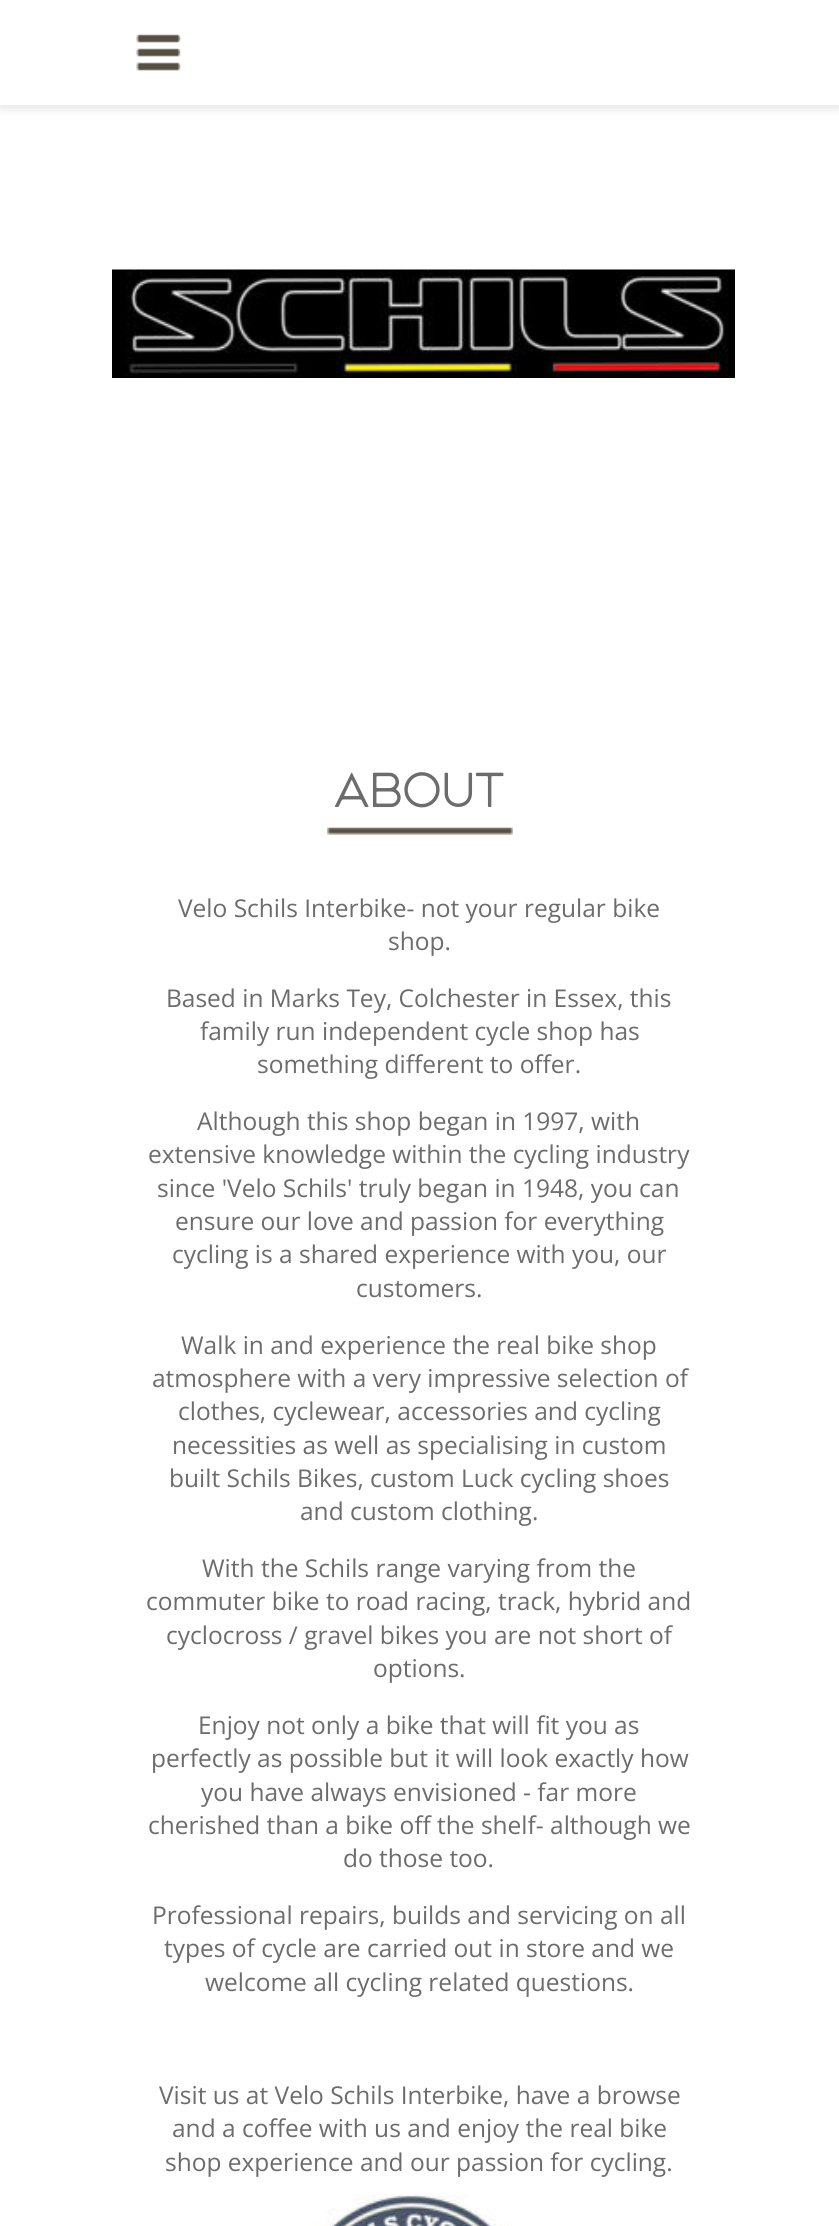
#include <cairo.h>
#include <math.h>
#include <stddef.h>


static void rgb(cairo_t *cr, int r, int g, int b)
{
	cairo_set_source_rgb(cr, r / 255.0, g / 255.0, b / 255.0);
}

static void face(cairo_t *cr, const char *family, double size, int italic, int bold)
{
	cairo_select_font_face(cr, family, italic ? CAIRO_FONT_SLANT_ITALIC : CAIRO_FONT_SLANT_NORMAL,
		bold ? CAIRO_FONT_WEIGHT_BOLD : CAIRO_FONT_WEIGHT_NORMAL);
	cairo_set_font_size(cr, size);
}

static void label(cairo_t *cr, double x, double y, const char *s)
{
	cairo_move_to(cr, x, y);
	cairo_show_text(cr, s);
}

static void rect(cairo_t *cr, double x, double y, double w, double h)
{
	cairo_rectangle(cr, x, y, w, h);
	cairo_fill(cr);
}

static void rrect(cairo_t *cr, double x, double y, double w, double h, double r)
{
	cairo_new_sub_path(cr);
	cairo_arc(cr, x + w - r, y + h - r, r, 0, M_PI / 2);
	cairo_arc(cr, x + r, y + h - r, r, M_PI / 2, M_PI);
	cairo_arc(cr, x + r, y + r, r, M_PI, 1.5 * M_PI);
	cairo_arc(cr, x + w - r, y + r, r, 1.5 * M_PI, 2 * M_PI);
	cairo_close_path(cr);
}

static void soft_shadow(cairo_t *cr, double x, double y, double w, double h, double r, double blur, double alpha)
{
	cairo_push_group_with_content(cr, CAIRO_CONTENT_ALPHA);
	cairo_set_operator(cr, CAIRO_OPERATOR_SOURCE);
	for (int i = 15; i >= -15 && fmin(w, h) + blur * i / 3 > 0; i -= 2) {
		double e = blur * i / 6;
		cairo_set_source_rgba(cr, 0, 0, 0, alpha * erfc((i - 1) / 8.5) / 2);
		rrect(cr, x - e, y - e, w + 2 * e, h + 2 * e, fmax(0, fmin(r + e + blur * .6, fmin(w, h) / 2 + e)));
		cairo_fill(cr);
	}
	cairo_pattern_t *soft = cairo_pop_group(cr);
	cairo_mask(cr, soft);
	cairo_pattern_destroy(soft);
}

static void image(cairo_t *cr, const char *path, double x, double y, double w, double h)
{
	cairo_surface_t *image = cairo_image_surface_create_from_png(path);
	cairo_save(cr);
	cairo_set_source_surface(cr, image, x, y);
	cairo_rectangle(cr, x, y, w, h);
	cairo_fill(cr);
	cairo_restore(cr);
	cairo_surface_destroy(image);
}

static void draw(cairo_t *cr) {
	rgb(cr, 255, 255, 255);
	cairo_paint(cr);
	rgb(cr, 0, 0, 0);
	soft_shadow(cr, 0, 4, 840, 105, 0, 5, 0.1);
	rgb(cr, 255, 255, 255);
	rect(cr, 0, 0, 839, 105);
	image(cr, "image0.png", 136, 34, 45, 37);
	image(cr, "image1.png", 112, 269, 623, 109);
	face(cr, "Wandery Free", 49, 0, 0);
	rgb(cr, 108, 108, 108);
	label(cr, 334, 807, "ABOUT");
	face(cr, "Open Sans", 24.5, 0, 0);
	label(cr, 178, 917, "Velo Schils Interbike- not your regular bike");
	label(cr, 388, 950, "shop.");
	label(cr, 166, 1007, "Based in Marks Tey, Colchester in Essex, this");
	label(cr, 200, 1040, "family run independent cycle shop has");
	label(cr, 257, 1073, "something different to offer.");
	label(cr, 197, 1130, "Although this shop began in 1997, with");
	label(cr, 148, 1163, "extensive knowledge within the cycling industry");
	label(cr, 157, 1197, "since 'Velo Schils' truly began in 1948, you can");
	label(cr, 175, 1230, "ensure our love and passion for everything");
	label(cr, 172, 1263, "cycling is a shared experience with you, our");
	label(cr, 356, 1297, "customers.");
	label(cr, 181, 1354, "Walk in and experience the real bike shop");
	label(cr, 152, 1387, "atmosphere with a very impressive selection of");
	label(cr, 178, 1420, "clothes, cyclewear, accessories and cycling");
	label(cr, 172, 1454, "necessities as well as specialising in custom");
	label(cr, 169, 1487, "built Schils Bikes, custom Luck cycling shoes");
	label(cr, 300, 1520, "and custom clothing.");
	label(cr, 202, 1577, "With the Schils range varying from the");
	label(cr, 146, 1610, "commuter bike to road racing, track, hybrid and");
	label(cr, 166, 1644, "cyclocross / gravel bikes you are not short of");
	label(cr, 373, 1677, "options.");
	label(cr, 198, 1734, "Enjoy not only a bike that will fit you as");
	label(cr, 151, 1767, "perfectly as possible but it will look exactly how");
	label(cr, 201, 1801, "you have always envisioned - far more");
	label(cr, 148, 1834, "cherished than a bike off the shelf- although we");
	label(cr, 343, 1867, "do those too.");
	label(cr, 152, 1924, "Professional repairs, builds and servicing on all");
	label(cr, 164, 1957, "types of cycle are carried out in store and we");
	label(cr, 205, 1991, "welcome all cycling related questions.");
	label(cr, 159, 2104, "Visit us at Velo Schils Interbike, have a browse");
	label(cr, 172, 2137, "and a coffee with us and enjoy the real bike");
	label(cr, 165, 2171, "shop experience and our passion for cycling.");
	image(cr, "image2.png", 327, 827, 186, 8);
	image(cr, "image3.png", 313, 2194, 196, 32);
}

int main(void) {
	cairo_surface_t *surface = cairo_image_surface_create(CAIRO_FORMAT_RGB24, 839, 2226);
	cairo_t *cr = cairo_create(surface);
	cairo_font_options_t *options = cairo_font_options_create();
	cairo_font_options_set_hint_metrics(options, CAIRO_HINT_METRICS_OFF);
	cairo_font_options_set_hint_style(options, CAIRO_HINT_STYLE_NONE);
	cairo_set_font_options(cr, options);
	cairo_set_miter_limit(cr, 4);
	draw(cr);
	cairo_surface_write_to_png(surface, "render.png");
	cairo_font_options_destroy(options);
	cairo_destroy(cr);
	cairo_surface_destroy(surface);
	return 0;
}
